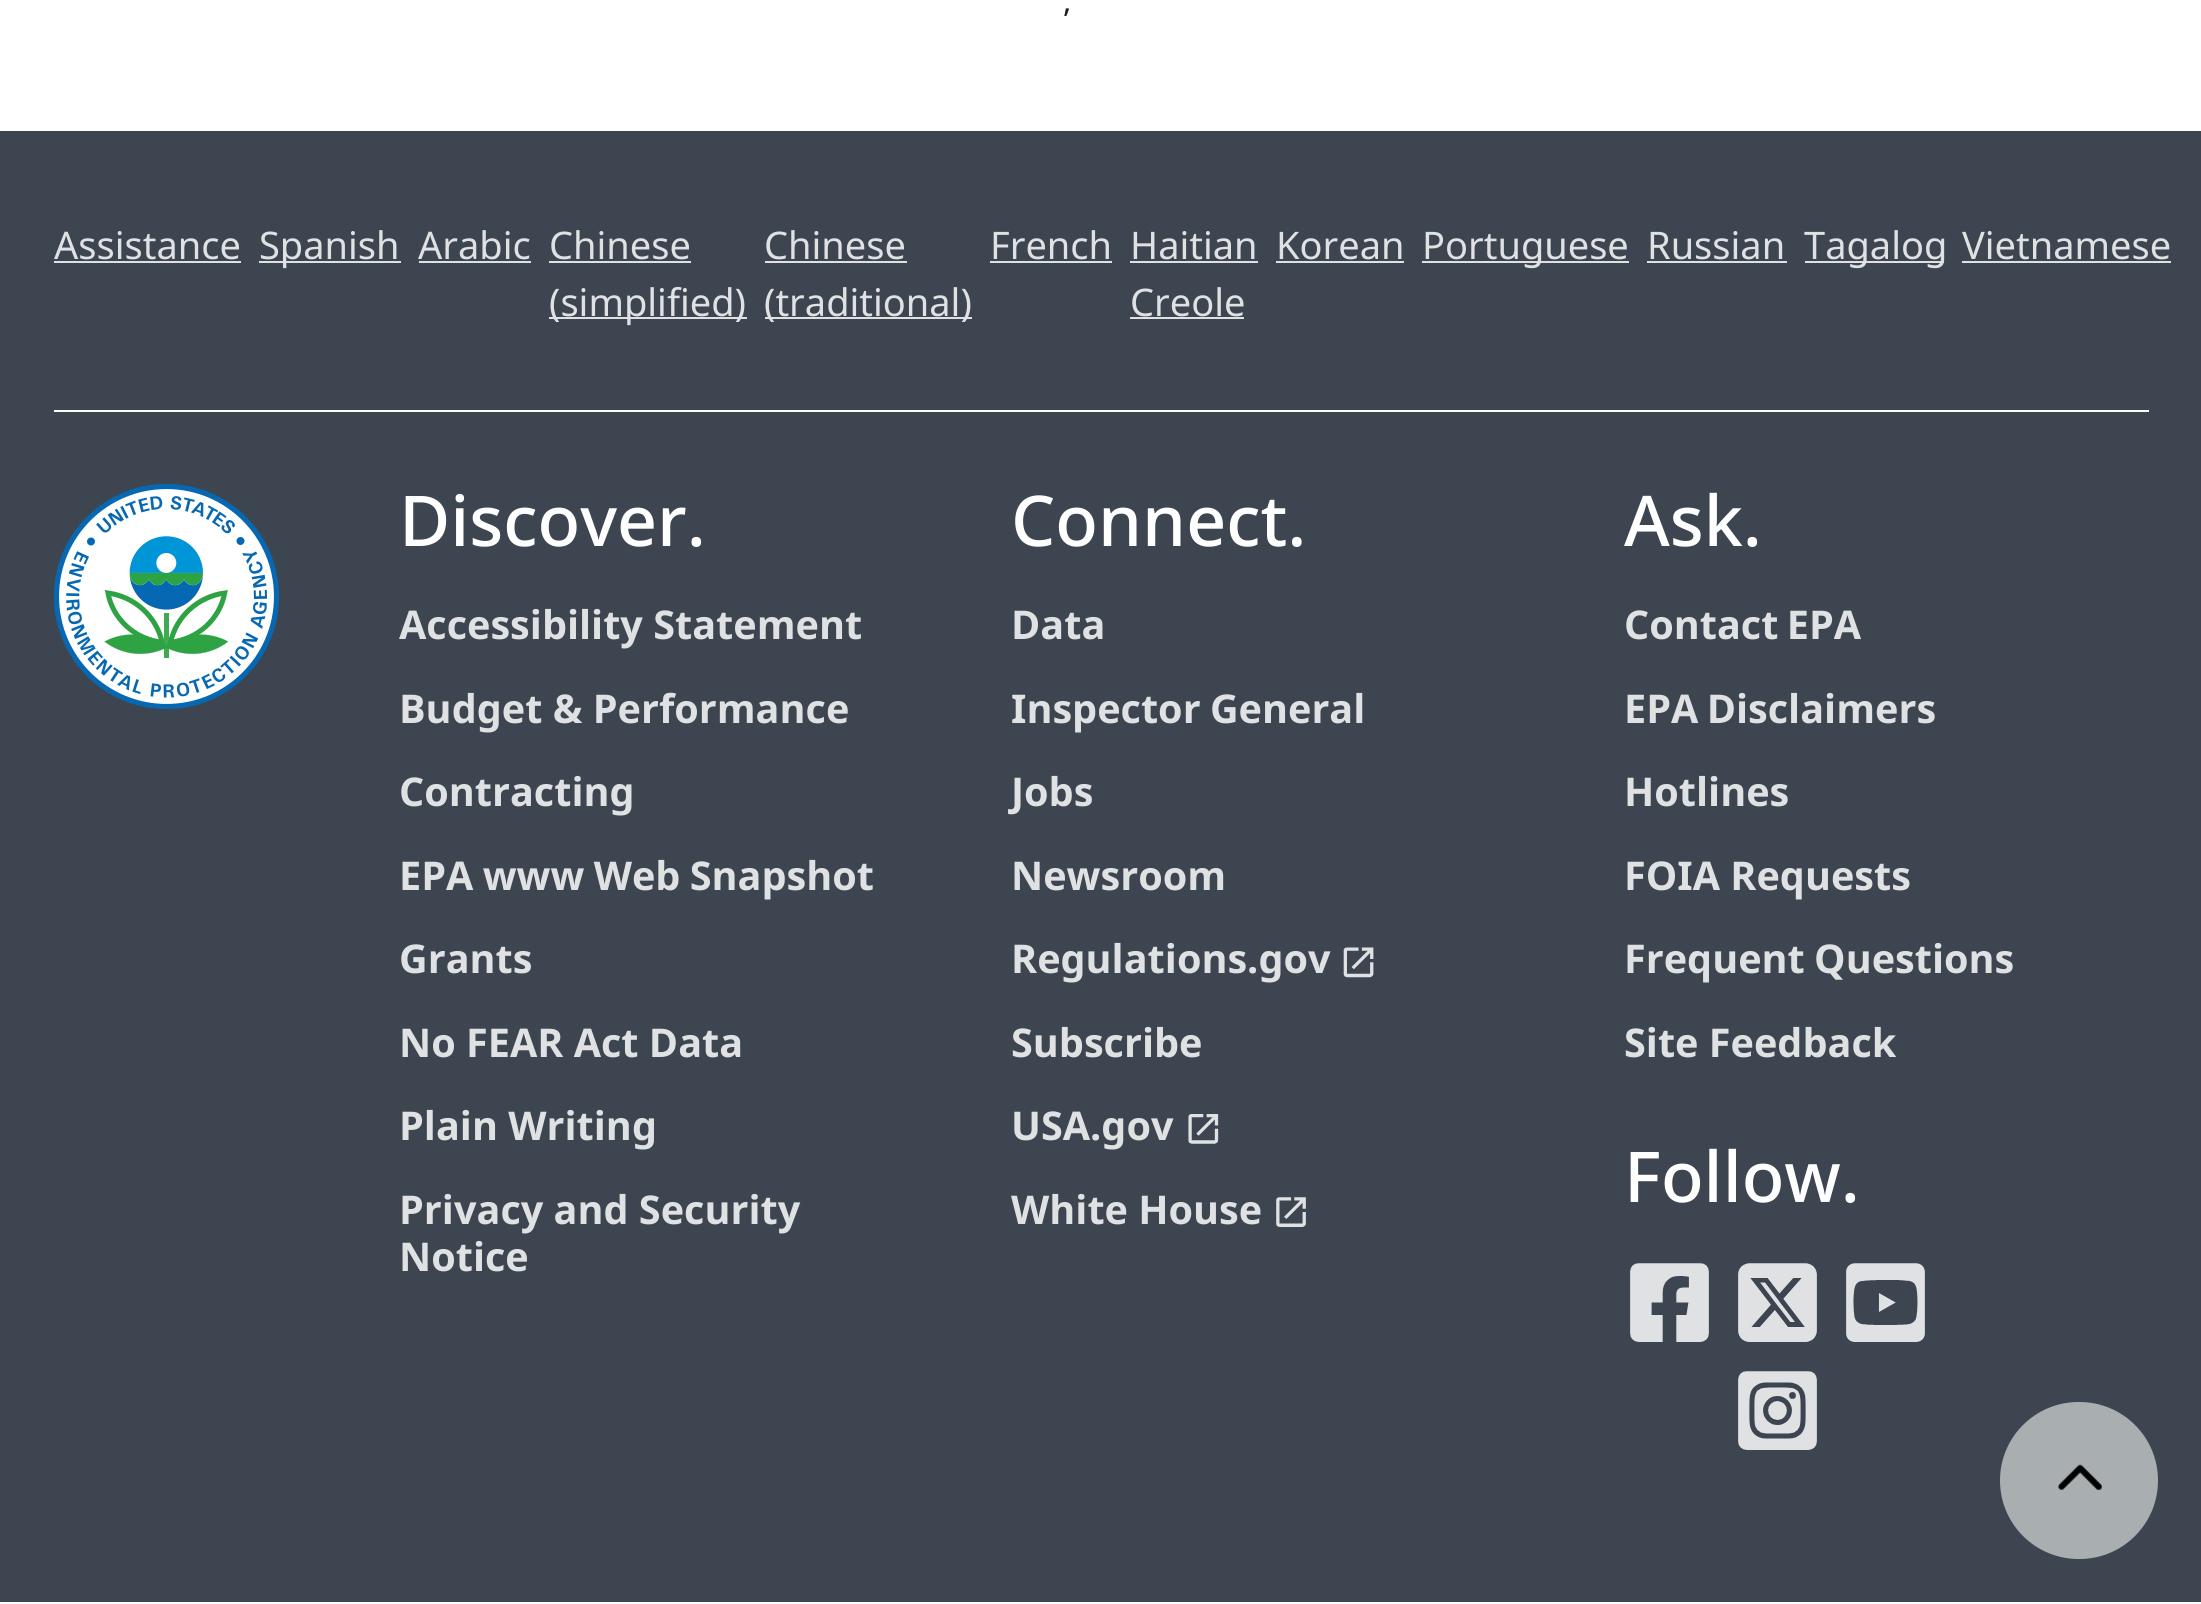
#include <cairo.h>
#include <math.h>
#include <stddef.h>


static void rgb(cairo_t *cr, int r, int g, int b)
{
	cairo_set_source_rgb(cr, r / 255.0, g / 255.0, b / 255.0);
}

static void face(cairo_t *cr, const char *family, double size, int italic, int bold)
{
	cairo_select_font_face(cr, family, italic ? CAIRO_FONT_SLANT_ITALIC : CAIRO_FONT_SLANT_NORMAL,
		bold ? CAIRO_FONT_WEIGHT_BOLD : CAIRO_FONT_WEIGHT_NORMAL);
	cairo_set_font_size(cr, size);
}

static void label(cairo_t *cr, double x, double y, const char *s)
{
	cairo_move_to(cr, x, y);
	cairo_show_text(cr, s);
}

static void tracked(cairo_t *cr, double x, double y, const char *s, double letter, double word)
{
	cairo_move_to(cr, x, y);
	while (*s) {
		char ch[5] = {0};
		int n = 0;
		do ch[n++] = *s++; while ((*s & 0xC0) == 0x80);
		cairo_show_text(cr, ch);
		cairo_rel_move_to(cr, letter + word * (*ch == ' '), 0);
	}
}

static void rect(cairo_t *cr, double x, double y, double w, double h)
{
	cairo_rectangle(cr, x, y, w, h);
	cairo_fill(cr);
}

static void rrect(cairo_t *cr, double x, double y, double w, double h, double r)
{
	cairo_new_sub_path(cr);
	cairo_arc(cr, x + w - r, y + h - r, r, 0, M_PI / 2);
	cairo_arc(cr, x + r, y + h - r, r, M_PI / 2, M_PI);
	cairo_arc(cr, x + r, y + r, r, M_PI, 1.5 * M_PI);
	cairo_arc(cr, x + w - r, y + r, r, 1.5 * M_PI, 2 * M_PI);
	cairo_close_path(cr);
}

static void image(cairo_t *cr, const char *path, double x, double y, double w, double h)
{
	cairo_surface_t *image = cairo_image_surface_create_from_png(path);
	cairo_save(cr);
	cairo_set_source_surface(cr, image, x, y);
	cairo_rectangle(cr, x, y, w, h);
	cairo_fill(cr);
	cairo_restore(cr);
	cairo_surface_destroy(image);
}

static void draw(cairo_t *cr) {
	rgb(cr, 255, 255, 255);
	cairo_paint(cr);
	face(cr, "Noto Sans Arabic", 31, 0, 0);
	rgb(cr, 27, 27, 27);
	label(cr, 1063, 12, ",");
	rgb(cr, 61, 69, 81);
	rect(cr, 0, 131, 2201, 1471);
	rgb(cr, 255, 255, 255);
	rect(cr, 54, 410, 2095, 2);
	face(cr, "Noto Sans Arabic", 38, 0, 0);
	rgb(cr, 223, 225, 226);
	label(cr, 54, 259, "Assistance");
	rect(cr, 54, 261, 187, 2);
	rect(cr, 259, 261, 142, 2);
	label(cr, 259, 259, "Spanish");
	label(cr, 418, 259, "Arabic");
	rect(cr, 419, 261, 112, 2);
	label(cr, 549, 259, "Chinese");
	rect(cr, 549, 261, 142, 2);
	rect(cr, 549, 317, 198, 2);
	label(cr, 549, 316, "(simplified)");
	label(cr, 764, 259, "Chinese");
	rect(cr, 765, 261, 142, 2);
	rect(cr, 765, 317, 207, 2);
	label(cr, 764, 316, "(traditional)");
	label(cr, 990, 259, "French");
	rect(cr, 990, 261, 122, 2);
	label(cr, 1130, 259, "Haitian");
	rect(cr, 1130, 261, 128, 2);
	label(cr, 1130, 316, "Creole");
	rect(cr, 1130, 317, 114, 2);
	label(cr, 1276, 259, "Korean");
	rect(cr, 1276, 261, 128, 2);
	rect(cr, 1422, 261, 207, 2);
	label(cr, 1422, 259, "Portuguese");
	label(cr, 1647, 259, "Russian");
	rect(cr, 1647, 261, 140, 2);
	rect(cr, 1805, 261, 139, 2);
	label(cr, 1804, 259, "Tagalog");
	label(cr, 1962, 259, "Vietnamese");
	rect(cr, 1962, 261, 209, 2);
	image(cr, "image0.png", 54, 484, 225, 225);
	face(cr, "Noto Sans Arabic Medium", 70, 0, 0);
	rgb(cr, 255, 255, 255);
	label(cr, 399, 546, "Discover.");
	face(cr, "Noto Sans Arabic", 39.6, 0, 1);
	rgb(cr, 223, 225, 226);
	label(cr, 399, 639, "Accessibility Statement");
	label(cr, 399, 723, "Budget & Performance");
	label(cr, 399, 806, "Contracting");
	tracked(cr, 399, 890, "EPA www Web Snapshot", 0, -1);
	label(cr, 399, 973, "Grants");
	label(cr, 399, 1057, "No FEAR Act Data");
	label(cr, 399, 1140, "Plain Writing");
	label(cr, 399, 1224, "Privacy and Security");
	label(cr, 399, 1271, "Notice");
	face(cr, "Noto Sans Arabic Medium", 70, 0, 0);
	rgb(cr, 255, 255, 255);
	label(cr, 1011, 546, "Connect.");
	face(cr, "Noto Sans Arabic", 39.6, 0, 1);
	rgb(cr, 223, 225, 226);
	label(cr, 1011, 639, "Data");
	tracked(cr, 1011, 723, "Inspector General", 0, -1);
	label(cr, 1011, 806, "Jobs");
	label(cr, 1011, 890, "Newsroom");
	label(cr, 1011, 973, "Regulations.gov");
	image(cr, "image1.png", 1343, 947, 31, 31);
	label(cr, 1011, 1057, "Subscribe");
	label(cr, 1011, 1140, "USA.gov");
	image(cr, "image2.png", 1188, 1114, 31, 30);
	label(cr, 1011, 1224, "White House");
	image(cr, "image3.png", 1276, 1197, 30, 30);
	face(cr, "Noto Sans Arabic Medium", 70, 0, 0);
	rgb(cr, 255, 255, 255);
	label(cr, 1624, 546, "Ask.");
	face(cr, "Noto Sans Arabic", 39.6, 0, 1);
	rgb(cr, 223, 225, 226);
	tracked(cr, 1624, 639, "Contact EPA", 0, -2);
	tracked(cr, 1624, 723, "EPA Disclaimers", 0, -2);
	label(cr, 1624, 806, "Hotlines");
	label(cr, 1624, 890, "FOIA Requests");
	tracked(cr, 1624, 973, "Frequent Questions", 0, -1);
	label(cr, 1624, 1057, "Site Feedback");
	face(cr, "Noto Sans Arabic Medium", 70, 0, 0);
	rgb(cr, 255, 255, 255);
	label(cr, 1624, 1202, "Follow.");
	image(cr, "image4.png", 1630, 1263, 79, 79);
	image(cr, "image5.png", 1738, 1263, 79, 79);
	image(cr, "image6.png", 1846, 1263, 79, 79);
	image(cr, "image7.png", 1738, 1371, 79, 79);
	rgb(cr, 169, 174, 177);
	rrect(cr, 2000, 1402, 158, 157, 78.5);
	cairo_fill(cr);
	image(cr, "image8.png", 2057, 1464, 45, 26);
}

int main(void) {
	cairo_surface_t *surface = cairo_image_surface_create(CAIRO_FORMAT_RGB24, 2201, 1604);
	cairo_t *cr = cairo_create(surface);
	cairo_font_options_t *options = cairo_font_options_create();
	cairo_font_options_set_hint_metrics(options, CAIRO_HINT_METRICS_OFF);
	cairo_font_options_set_hint_style(options, CAIRO_HINT_STYLE_NONE);
	cairo_set_font_options(cr, options);
	cairo_set_miter_limit(cr, 4);
	draw(cr);
	cairo_surface_write_to_png(surface, "render.png");
	cairo_font_options_destroy(options);
	cairo_destroy(cr);
	cairo_surface_destroy(surface);
	return 0;
}
